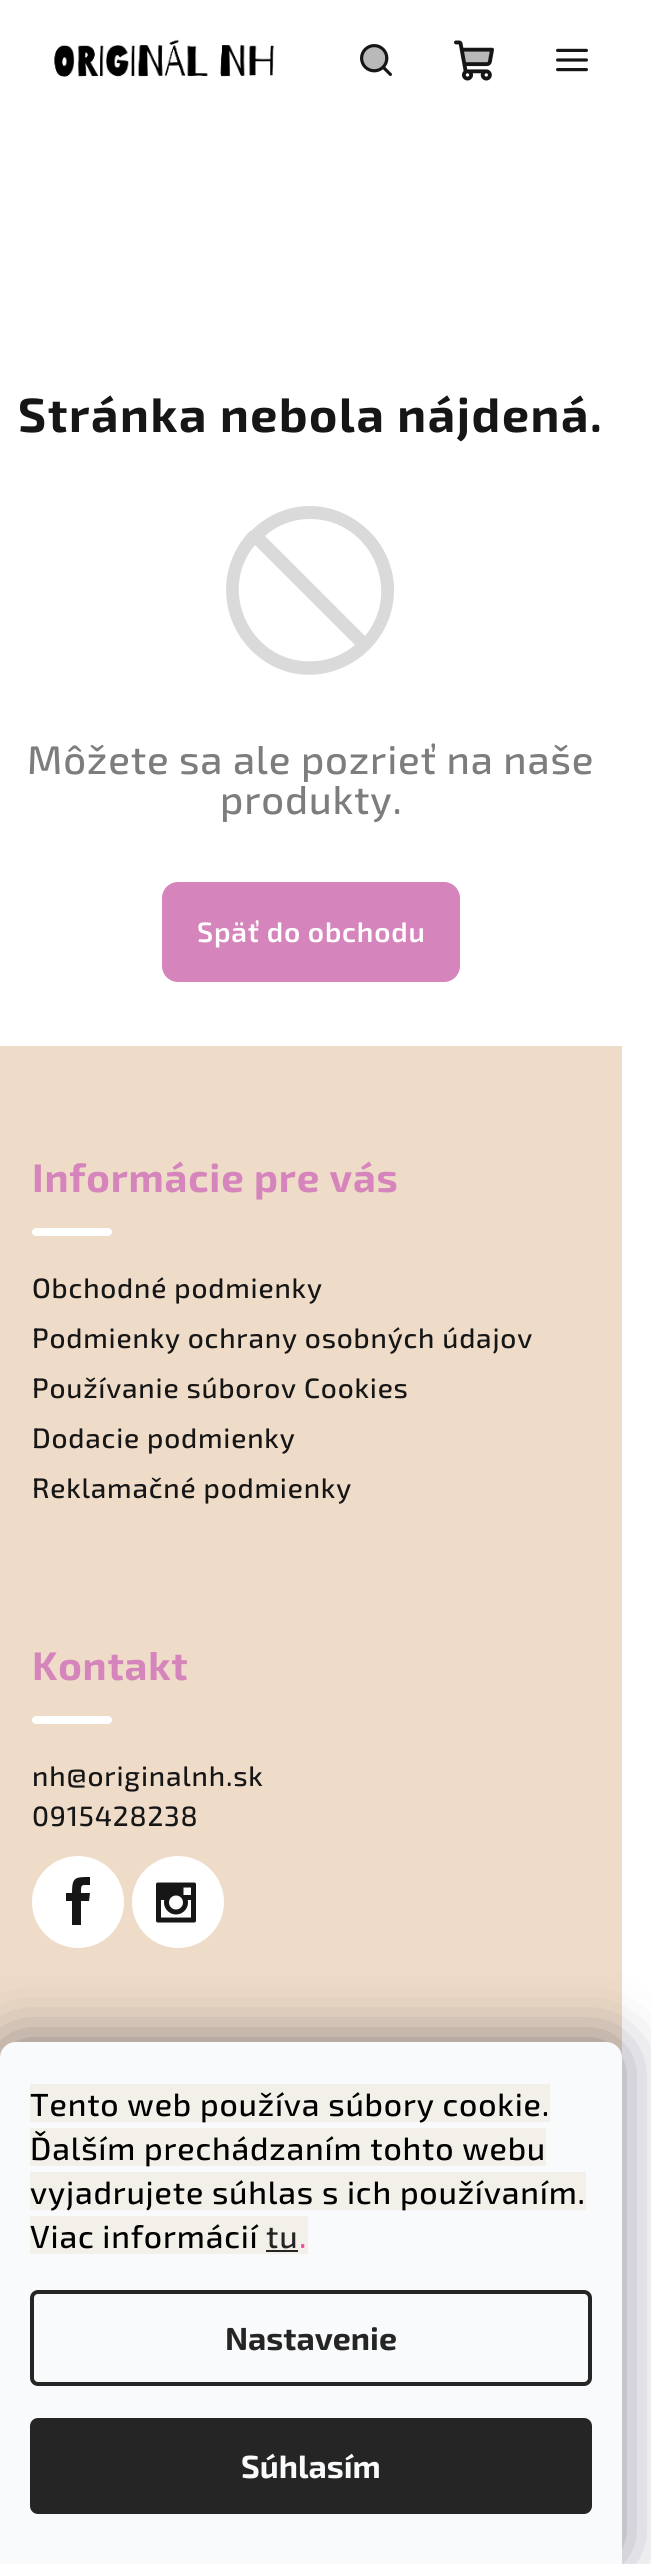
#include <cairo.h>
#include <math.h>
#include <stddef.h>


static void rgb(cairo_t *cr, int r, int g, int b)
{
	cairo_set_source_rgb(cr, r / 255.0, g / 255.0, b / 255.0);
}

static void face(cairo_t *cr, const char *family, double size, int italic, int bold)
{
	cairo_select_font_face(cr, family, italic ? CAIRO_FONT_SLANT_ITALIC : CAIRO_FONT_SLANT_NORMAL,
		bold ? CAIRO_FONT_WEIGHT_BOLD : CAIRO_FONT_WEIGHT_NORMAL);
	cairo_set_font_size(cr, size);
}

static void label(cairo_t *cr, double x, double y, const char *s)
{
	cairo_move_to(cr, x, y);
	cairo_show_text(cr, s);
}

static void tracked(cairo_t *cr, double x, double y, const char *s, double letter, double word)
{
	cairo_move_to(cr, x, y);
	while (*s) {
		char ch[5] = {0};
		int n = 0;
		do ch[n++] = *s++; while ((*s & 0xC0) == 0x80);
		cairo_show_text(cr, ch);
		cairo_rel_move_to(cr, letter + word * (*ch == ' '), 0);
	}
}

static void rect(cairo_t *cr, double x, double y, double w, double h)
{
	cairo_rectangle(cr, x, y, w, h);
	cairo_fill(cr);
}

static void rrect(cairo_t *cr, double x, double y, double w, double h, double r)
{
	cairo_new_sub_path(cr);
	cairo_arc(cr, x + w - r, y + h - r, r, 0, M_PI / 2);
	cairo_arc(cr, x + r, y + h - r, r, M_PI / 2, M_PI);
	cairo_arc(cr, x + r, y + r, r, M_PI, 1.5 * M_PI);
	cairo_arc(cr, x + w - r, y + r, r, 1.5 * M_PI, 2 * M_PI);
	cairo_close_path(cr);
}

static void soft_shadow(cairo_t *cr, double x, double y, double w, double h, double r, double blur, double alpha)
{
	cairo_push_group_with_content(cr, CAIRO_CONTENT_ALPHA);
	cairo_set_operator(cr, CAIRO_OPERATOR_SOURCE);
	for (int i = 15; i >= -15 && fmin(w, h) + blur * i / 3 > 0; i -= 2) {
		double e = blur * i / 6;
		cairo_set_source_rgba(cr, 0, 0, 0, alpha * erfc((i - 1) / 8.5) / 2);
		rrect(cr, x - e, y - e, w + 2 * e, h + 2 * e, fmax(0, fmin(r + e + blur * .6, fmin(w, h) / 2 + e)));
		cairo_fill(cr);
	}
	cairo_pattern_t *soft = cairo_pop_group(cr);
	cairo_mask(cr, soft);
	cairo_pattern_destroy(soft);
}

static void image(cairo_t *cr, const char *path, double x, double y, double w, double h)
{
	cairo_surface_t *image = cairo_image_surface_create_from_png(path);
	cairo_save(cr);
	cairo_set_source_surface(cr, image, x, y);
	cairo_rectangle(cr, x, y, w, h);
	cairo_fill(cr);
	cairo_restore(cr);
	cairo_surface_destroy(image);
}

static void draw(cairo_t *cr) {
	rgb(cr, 255, 255, 255);
	cairo_paint(cr);
	image(cr, "image0.png", 54, 39, 220, 38);
	image(cr, "image1.png", 360, 44, 32, 32);
	cairo_set_source_rgba(cr, 0.086, 0.086, 0.086, 0.3);
	cairo_new_path(cr);
	cairo_move_to(cr, 374, 71);
	cairo_curve_to(cr, 391, 71, 391, 45.5, 374, 45.5);
	cairo_curve_to(cr, 357.5, 45.5, 357.5, 71, 374, 71);
	cairo_close_path(cr);
	cairo_fill(cr);
	image(cr, "image2.png", 454, 40, 40, 41);
	cairo_new_path(cr);
	cairo_move_to(cr, 464.5, 64);
	cairo_line_to(cr, 483.5, 64);
	cairo_curve_to(cr, 488.5, 64, 489.5, 64.5, 490, 59.5);
	cairo_line_to(cr, 492, 49.5);
	cairo_line_to(cr, 461.5, 49.5);
	cairo_close_path(cr);
	cairo_fill(cr);
	image(cr, "image3.png", 556, 48, 32, 24);
	face(cr, "Exo 2", 48, 0, 1);
	rgb(cr, 22, 22, 22);
	tracked(cr, 18, 432, "Stránka nebola nájdená.", 1.6, 0);
	rgb(cr, 218, 218, 218);
	cairo_new_path(cr);
	cairo_move_to(cr, 310, 506);
	cairo_curve_to(cr, 288, 506, 267, 515, 251, 531);
	cairo_line_to(cr, 250, 531);
	cairo_curve_to(cr, 217, 565, 218, 620, 254, 653);
	cairo_curve_to(cr, 310, 704, 397, 659, 394, 586);
	cairo_curve_to(cr, 393, 567, 385, 548, 372, 534);
	cairo_curve_to(cr, 356, 517, 334, 506, 310, 506);
	cairo_close_path(cr);
	cairo_move_to(cr, 310, 519);
	cairo_curve_to(cr, 370, 519, 403, 590, 365, 636);
	cairo_line_to(cr, 265, 536);
	cairo_curve_to(cr, 277, 525, 293, 519, 310, 519);
	cairo_close_path(cr);
	cairo_move_to(cr, 255, 545);
	cairo_line_to(cr, 355, 645);
	cairo_curve_to(cr, 344, 654, 331, 660, 316, 661);
	cairo_curve_to(cr, 254, 667, 215, 593, 255, 545);
	cairo_close_path(cr);
	cairo_fill(cr);
	face(cr, "Exo 2 Medium", 40, 0, 0);
	rgb(cr, 125, 125, 125);
	tracked(cr, 27, 774, "Môžete sa ale pozrieť na naše", 0.8, 0);
	tracked(cr, 220, 814, "produkty.", 0.8, 0);
	rgb(cr, 214, 133, 188);
	rrect(cr, 163, 883, 296, 98, 15);
	cairo_fill_preserve(cr);
	cairo_stroke(cr);
	face(cr, "Exo 2 SemiBold", 28, 0, 0);
	rgb(cr, 255, 255, 255);
	tracked(cr, 197, 942, "Späť do obchodu", 0.8, 0);
	rgb(cr, 238, 219, 200);
	rect(cr, 0, 1046, 622, 1012);
	face(cr, "Exo 2", 40, 0, 1);
	rgb(cr, 214, 133, 188);
	tracked(cr, 32, 1192, "Informácie pre vás", 0.8, 0);
	rgb(cr, 255, 255, 255);
	rrect(cr, 32, 1228, 80, 8, 4);
	cairo_fill(cr);
	face(cr, "Exo 2 Medium", 28, 0, 0);
	rgb(cr, 22, 22, 22);
	tracked(cr, 32, 1298, "Obchodné podmienky", 0.8, 0);
	tracked(cr, 32, 1348, "Podmienky ochrany osobných údajov", 0.8, 0);
	tracked(cr, 32, 1398, "Používanie súborov Cookies", 0.8, 0);
	tracked(cr, 32, 1448, "Dodacie podmienky", 0.8, 0);
	tracked(cr, 32, 1498, "Reklamačné podmienky", 0.8, 0);
	face(cr, "Exo 2", 40, 0, 1);
	rgb(cr, 214, 133, 188);
	tracked(cr, 32, 1680, "Kontakt", 0.8, 0);
	rgb(cr, 255, 255, 255);
	rrect(cr, 32, 1716, 80, 8, 4);
	cairo_fill(cr);
	face(cr, "Exo 2 Medium", 28, 0, 0);
	rgb(cr, 22, 22, 22);
	tracked(cr, 32, 1786, "nh@originalnh.sk", 0.8, 0);
	tracked(cr, 32, 1826, "0915428238", 0.8, 0);
	rgb(cr, 255, 255, 255);
	cairo_new_path(cr);
	cairo_arc(cr, 78, 1902, 46, 0, 2 * M_PI);
	cairo_fill(cr);
	rgb(cr, 22, 22, 22);
	cairo_new_path(cr);
	cairo_move_to(cr, 72, 1925);
	cairo_line_to(cr, 81, 1925);
	cairo_line_to(cr, 81, 1901);
	cairo_line_to(cr, 89, 1901);
	cairo_line_to(cr, 90, 1893);
	cairo_line_to(cr, 81, 1893);
	cairo_curve_to(cr, 81, 1884, 81, 1885, 90, 1885);
	cairo_line_to(cr, 90, 1877);
	cairo_curve_to(cr, 75, 1877, 72, 1877, 72, 1893);
	cairo_line_to(cr, 66, 1893);
	cairo_line_to(cr, 66, 1901);
	cairo_line_to(cr, 72, 1901);
	cairo_close_path(cr);
	cairo_fill(cr);
	rgb(cr, 255, 255, 255);
	cairo_arc(cr, 178, 1902, 46, 0, 2 * M_PI);
	cairo_fill(cr);
	image(cr, "image4.png", 156, 1882, 40, 41);
	rgb(cr, 27, 25, 57);
	soft_shadow(cr, 0, 2042, 622, 522, 16, 30, 0.5);
	rgb(cr, 248, 250, 251);
	cairo_new_path(cr);
	cairo_move_to(cr, 16, 2042);
	cairo_line_to(cr, 606, 2042);
	cairo_curve_to(cr, 615, 2042, 622, 2049, 622, 2058);
	cairo_line_to(cr, 622, 2564);
	cairo_line_to(cr, 0, 2564);
	cairo_line_to(cr, 0, 2058);
	cairo_curve_to(cr, 0, 2049, 7, 2042, 16, 2042);
	cairo_close_path(cr);
	cairo_fill(cr);
	rgb(cr, 242, 240, 233);
	rect(cr, 30, 2084, 520, 38);
	face(cr, "Exo 2 Medium", 32, 0, 0);
	rgb(cr, 0, 0, 0);
	tracked(cr, 30, 2116, "Tento web používa súbory cookie.", 0.8, 0);
	rgb(cr, 242, 240, 233);
	rect(cr, 30, 2128, 516, 38);
	rgb(cr, 0, 0, 0);
	tracked(cr, 30, 2160, "Ďalším prechádzaním tohto webu", 0.8, 0);
	rgb(cr, 242, 240, 233);
	rect(cr, 30, 2172, 556, 38);
	rgb(cr, 0, 0, 0);
	tracked(cr, 30, 2204, "vyjadrujete súhlas s ich používaním.", 0.8, 0);
	rgb(cr, 242, 240, 233);
	rect(cr, 30, 2216, 278, 38);
	rgb(cr, 0, 0, 0);
	tracked(cr, 30, 2248, "Viac informácií", 0.8, 0);
	rgb(cr, 37, 37, 37);
	tracked(cr, 266, 2248, "tu", 0.8, 0);
	rgb(cr, 237, 81, 159);
	tracked(cr, 299, 2248, ".", 0.8, 0);
	rgb(cr, 37, 37, 37);
	rect(cr, 266, 2250, 32, 2);
	rrect(cr, 32, 2292, 558, 92, 6);
	cairo_set_line_width(cr, 4);
	cairo_stroke(cr);
	face(cr, "Exo 2", 32, 0, 1);
	label(cr, 225, 2350, "Nastavenie");
	rrect(cr, 30, 2418, 562, 96, 8);
	cairo_fill(cr);
	rgb(cr, 248, 250, 251);
	label(cr, 241, 2478, "Súhlasím");
}

int main(void) {
	cairo_surface_t *surface = cairo_image_surface_create(CAIRO_FORMAT_RGB24, 651, 2564);
	cairo_t *cr = cairo_create(surface);
	cairo_font_options_t *options = cairo_font_options_create();
	cairo_font_options_set_hint_metrics(options, CAIRO_HINT_METRICS_OFF);
	cairo_font_options_set_hint_style(options, CAIRO_HINT_STYLE_NONE);
	cairo_set_font_options(cr, options);
	cairo_set_miter_limit(cr, 4);
	draw(cr);
	cairo_surface_write_to_png(surface, "render.png");
	cairo_font_options_destroy(options);
	cairo_destroy(cr);
	cairo_surface_destroy(surface);
	return 0;
}
